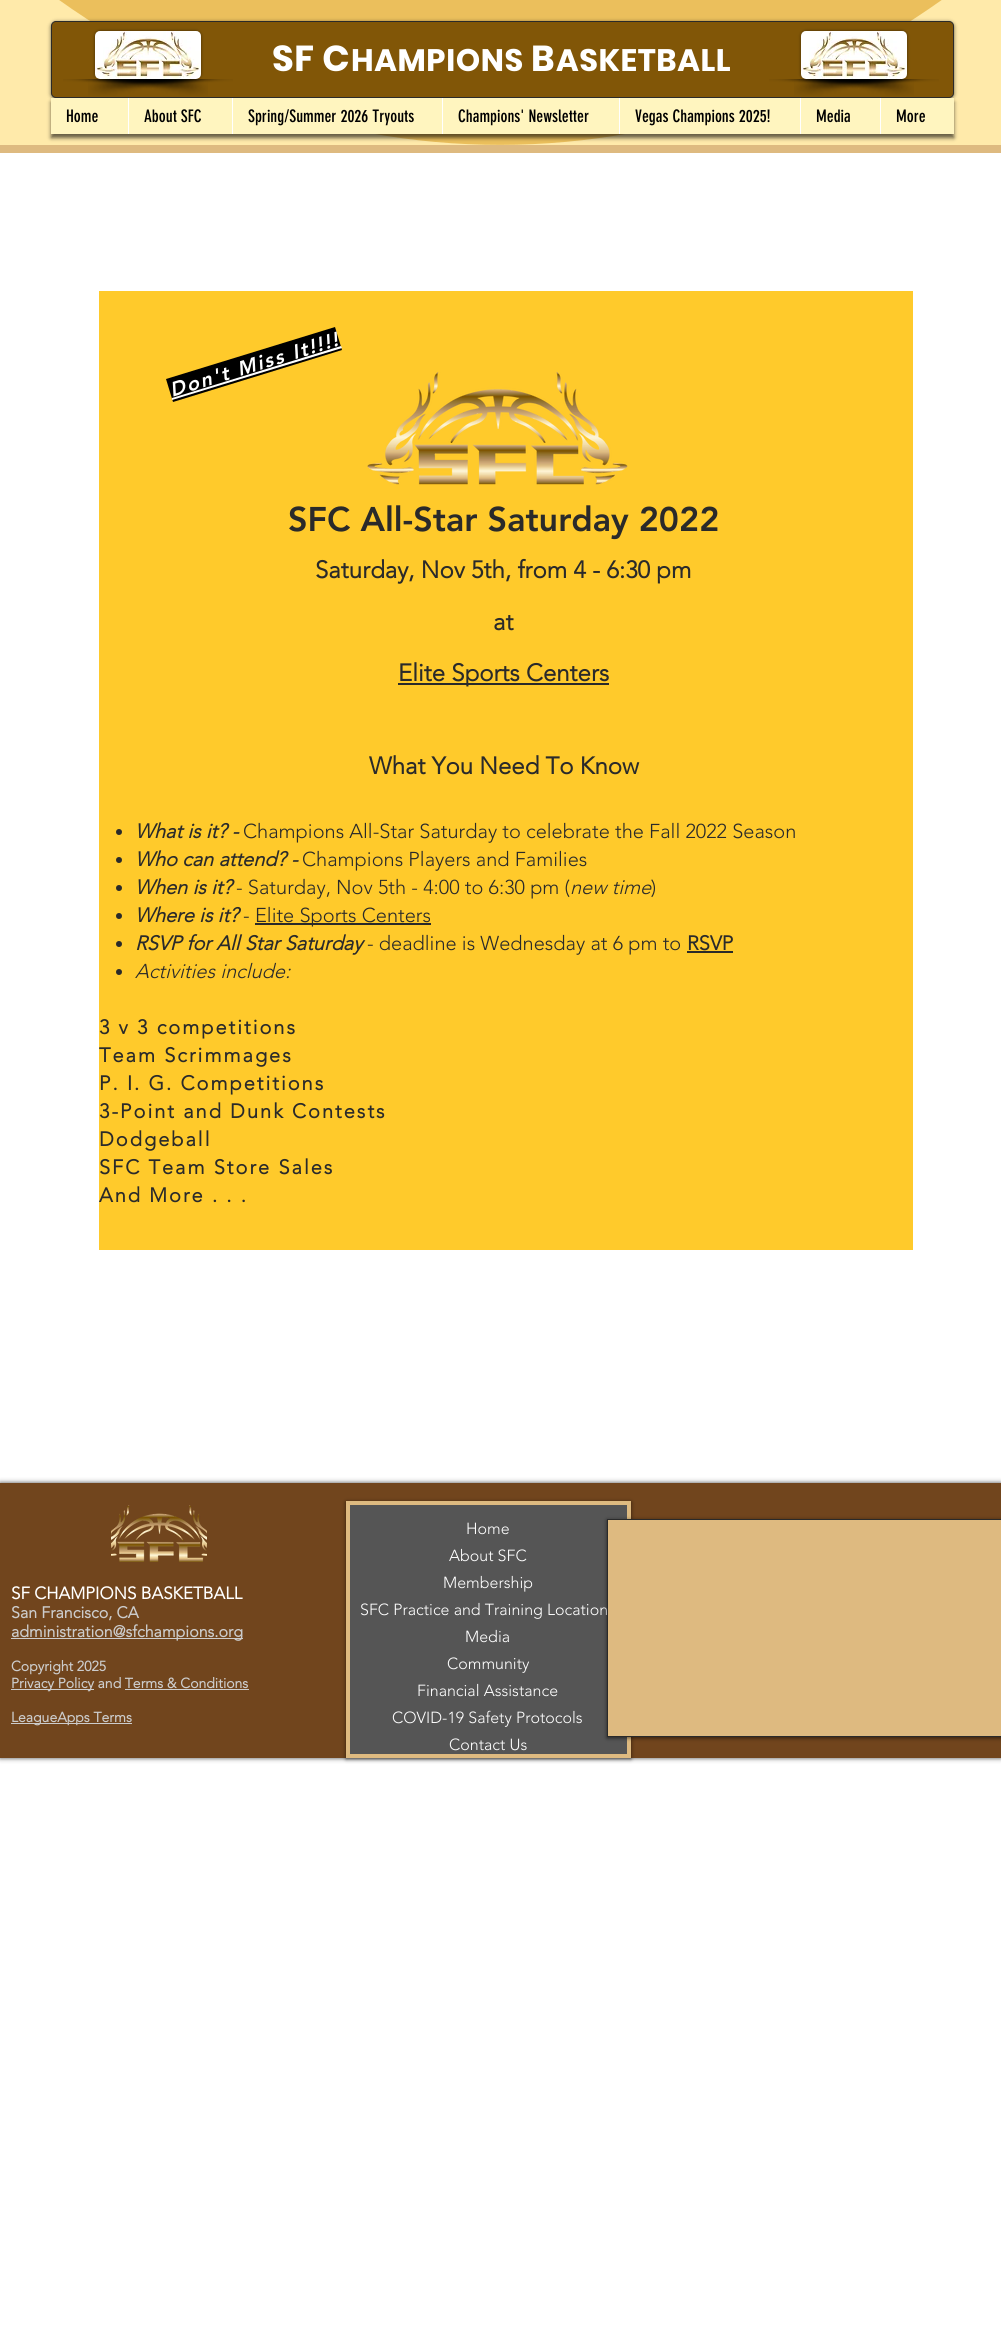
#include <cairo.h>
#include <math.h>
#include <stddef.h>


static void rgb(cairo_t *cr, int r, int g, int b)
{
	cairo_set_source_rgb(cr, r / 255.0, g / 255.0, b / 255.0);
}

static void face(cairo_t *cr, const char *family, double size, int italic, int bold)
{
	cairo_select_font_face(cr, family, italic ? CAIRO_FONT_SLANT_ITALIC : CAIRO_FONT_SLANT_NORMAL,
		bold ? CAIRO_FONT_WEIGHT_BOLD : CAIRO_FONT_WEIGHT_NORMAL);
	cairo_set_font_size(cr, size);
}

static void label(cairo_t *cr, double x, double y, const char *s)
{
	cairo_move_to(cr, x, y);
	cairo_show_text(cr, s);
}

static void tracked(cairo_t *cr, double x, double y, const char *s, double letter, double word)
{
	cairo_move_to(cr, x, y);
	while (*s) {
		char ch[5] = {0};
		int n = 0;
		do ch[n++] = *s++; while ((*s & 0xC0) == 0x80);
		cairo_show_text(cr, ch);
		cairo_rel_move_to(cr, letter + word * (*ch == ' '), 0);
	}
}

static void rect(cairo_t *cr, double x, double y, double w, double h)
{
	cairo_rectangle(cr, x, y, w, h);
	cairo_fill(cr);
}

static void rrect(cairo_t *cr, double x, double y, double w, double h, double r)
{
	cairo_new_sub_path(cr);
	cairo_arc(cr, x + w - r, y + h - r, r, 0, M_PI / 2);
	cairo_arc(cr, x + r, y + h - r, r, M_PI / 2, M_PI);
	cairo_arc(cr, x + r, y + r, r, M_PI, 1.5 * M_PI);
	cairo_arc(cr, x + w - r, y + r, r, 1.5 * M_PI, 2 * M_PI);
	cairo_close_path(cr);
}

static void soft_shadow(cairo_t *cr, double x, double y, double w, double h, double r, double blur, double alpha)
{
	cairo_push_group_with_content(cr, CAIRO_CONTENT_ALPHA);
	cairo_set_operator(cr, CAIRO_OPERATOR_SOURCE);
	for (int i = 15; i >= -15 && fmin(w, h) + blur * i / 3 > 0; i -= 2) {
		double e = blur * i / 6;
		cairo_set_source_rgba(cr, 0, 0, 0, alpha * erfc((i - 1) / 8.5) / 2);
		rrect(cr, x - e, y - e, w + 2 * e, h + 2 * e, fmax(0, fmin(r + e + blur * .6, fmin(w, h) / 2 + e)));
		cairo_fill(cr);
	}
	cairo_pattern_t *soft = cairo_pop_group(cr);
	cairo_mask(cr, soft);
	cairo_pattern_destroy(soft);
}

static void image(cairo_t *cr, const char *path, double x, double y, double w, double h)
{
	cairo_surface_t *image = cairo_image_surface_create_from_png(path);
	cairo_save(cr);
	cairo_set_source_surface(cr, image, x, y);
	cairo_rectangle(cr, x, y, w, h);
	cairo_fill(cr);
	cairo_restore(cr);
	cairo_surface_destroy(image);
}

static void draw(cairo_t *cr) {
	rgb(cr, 255, 255, 255);
	cairo_paint(cr);
	rgb(cr, 222, 186, 128);
	rect(cr, 0, 145, 1001, 8);
	rgb(cr, 235, 191, 92);
	rect(cr, 59, 0, 883, 145);
	cairo_save(cr);
	cairo_rectangle(cr, 0, 0, 1001, 145);
	cairo_clip(cr);
	rgb(cr, 255, 234, 170);
	cairo_set_fill_rule(cr, CAIRO_FILL_RULE_EVEN_ODD);
	cairo_new_path(cr);
	cairo_move_to(cr, 1001, -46);
	cairo_curve_to(cr, 701, 208, 300, 209, 0, -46);
	cairo_line_to(cr, 0, -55);
	cairo_line_to(cr, 1001, -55);
	cairo_close_path(cr);
	cairo_move_to(cr, 0, 146);
	cairo_line_to(cr, 1001, 146);
	cairo_line_to(cr, 1001, -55);
	cairo_line_to(cr, 0, -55);
	cairo_close_path(cr);
	cairo_fill(cr);
	cairo_restore(cr);
	rgb(cr, 0, 0, 0);
	soft_shadow(cr, 51, 22, 903, 77, 5, 2, 0.6);
	rgb(cr, 129, 86, 7);
	rrect(cr, 51.5, 21.5, 902, 76, 4.5);
	cairo_fill_preserve(cr);
	rgb(cr, 42, 42, 42);
	cairo_set_line_width(cr, 1);
	cairo_stroke(cr);
	rgb(cr, 0, 0, 0);
	soft_shadow(cr, 95, 31, 106, 48, 5, 1.5, 0.5);
	image(cr, "image0.png", 95, 31, 106, 48);
	image(cr, "image2.png", 88, 79, 145, 17);
	image(cr, "image1.png", 63, 79, 145, 17);
	face(cr, "Poppins", 36, 0, 1);
	rgb(cr, 255, 255, 255);
	tracked(cr, 272, 71, "SF C", 0.5, 0);
	face(cr, "Poppins", 31, 0, 1);
	tracked(cr, 351, 71, "HAMPIONS", 0.6, 0);
	face(cr, "Poppins", 36, 0, 1);
	tracked(cr, 531, 71, "B", 0.5, 0);
	face(cr, "Poppins", 31, 0, 1);
	tracked(cr, 556, 71, "ASKETBALL", 0.6, 0);
	rgb(cr, 0, 0, 0);
	soft_shadow(cr, 801, 31, 106, 48, 5, 1.5, 0.5);
	image(cr, "image3.png", 801, 31, 106, 48);
	image(cr, "image2.png", 794, 79, 145, 17);
	image(cr, "image1.png", 769, 79, 145, 17);
	soft_shadow(cr, 51, 102, 903, 36, 0, 2, 0.6);
	rgb(cr, 255, 245, 191);
	rect(cr, 51, 98, 903, 36);
	face(cr, "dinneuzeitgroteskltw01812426", 17, 0, 0);
	rgb(cr, 0, 0, 0);
	label(cr, 66, 122, "Home");
	rgb(cr, 255, 255, 255);
	rect(cr, 128, 98, 1, 36);
	rgb(cr, 0, 0, 0);
	label(cr, 144, 122, "About SFC");
	rgb(cr, 255, 255, 255);
	rect(cr, 232, 98, 1, 36);
	rgb(cr, 0, 0, 0);
	label(cr, 248, 122, "Spring/Summer 2026 Tryouts");
	rgb(cr, 255, 255, 255);
	rect(cr, 442, 98, 1, 36);
	rgb(cr, 0, 0, 0);
	label(cr, 458, 122, "Champions' Newsletter");
	rgb(cr, 255, 255, 255);
	rect(cr, 619, 98, 1, 36);
	rgb(cr, 0, 0, 0);
	label(cr, 635, 122, "Vegas Champions 2025!");
	rgb(cr, 255, 255, 255);
	rect(cr, 800, 98, 1, 36);
	rgb(cr, 0, 0, 0);
	label(cr, 816, 122, "Media");
	rgb(cr, 255, 255, 255);
	rect(cr, 880, 98, 1, 36);
	rgb(cr, 0, 0, 0);
	label(cr, 896, 122, "More");
	rgb(cr, 255, 202, 43);
	rect(cr, 99, 291, 814, 959);
	rgb(cr, 0, 0, 0);
	cairo_new_path(cr);
	cairo_move_to(cr, 166, 379);
	cairo_line_to(cr, 335, 327);
	cairo_line_to(cr, 342, 350);
	cairo_line_to(cr, 173, 402);
	cairo_close_path(cr);
	cairo_fill(cr);
	rgb(cr, 255, 255, 255);
	cairo_new_path(cr);
	cairo_move_to(cr, 172, 398);
	cairo_line_to(cr, 341, 346);
	cairo_line_to(cr, 342, 348);
	cairo_line_to(cr, 172, 400);
	cairo_close_path(cr);
	cairo_fill(cr);
	face(cr, "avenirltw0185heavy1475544 Black", 20, 1, 0);
	cairo_save(cr);
	cairo_translate(cr, 172, 397);
	cairo_rotate(cr, -17.1 * M_PI / 180);
	tracked(cr, 0, 0, "Don't Miss It!!!!", 2, 0);
	cairo_restore(cr);
	image(cr, "image4.png", 367, 371, 261, 114);
	face(cr, "avenirltw0185heavy1475544 Black", 34, 0, 0);
	rgb(cr, 42, 42, 42);
	label(cr, 288, 531, "SFC All-Star Saturday 2022");
	face(cr, "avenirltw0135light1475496", 24, 0, 1);
	label(cr, 315, 578, "Saturday, Nov 5th, from 4 - 6:30 pm");
	label(cr, 493, 630, "at");
	rect(cr, 398, 683, 211, 2);
	label(cr, 398, 681, "Elite Sports Centers");
	label(cr, 369, 774, "What You Need To Know");
	cairo_new_path(cr);
	cairo_arc(cr, 119, 832, 3, 0, 2 * M_PI);
	cairo_fill(cr);
	face(cr, "avenirltw0135light1475496", 20, 1, 1);
	label(cr, 135, 838, "What is it? -");
	face(cr, "avenirltw0135light1475496 Light", 20, 0, 0);
	label(cr, 243, 838, "Champions All-Star Saturday to celebrate the Fall 2022 Season");
	cairo_new_path(cr);
	cairo_arc(cr, 119, 860, 3, 0, 2 * M_PI);
	cairo_fill(cr);
	face(cr, "avenirltw0135light1475496", 20, 1, 1);
	label(cr, 135, 866, "Who can attend? -");
	face(cr, "avenirltw0135light1475496 Light", 20, 0, 0);
	label(cr, 302, 866, "Champions Players and Families");
	cairo_new_path(cr);
	cairo_arc(cr, 119, 888, 3, 0, 2 * M_PI);
	cairo_fill(cr);
	face(cr, "avenirltw0135light1475496", 20, 1, 1);
	label(cr, 135, 894, "When is it?");
	face(cr, "avenirltw0135light1475496 Light", 20, 0, 0);
	label(cr, 236, 894, "- Saturday, Nov 5th - 4:00 to 6:30 pm (");
	face(cr, "avenirltw0135light1475496 Light", 20, 1, 0);
	label(cr, 570, 894, "new time");
	face(cr, "avenirltw0135light1475496 Light", 20, 0, 0);
	label(cr, 651, 894, ")");
	cairo_new_path(cr);
	cairo_arc(cr, 119, 916, 3, 0, 2 * M_PI);
	cairo_fill(cr);
	face(cr, "avenirltw0135light1475496", 20, 1, 1);
	label(cr, 135, 922, "Where is it?");
	face(cr, "avenirltw0135light1475496 Light", 20, 0, 0);
	label(cr, 243, 922, "-");
	rect(cr, 255, 923, 176, 2);
	label(cr, 255, 922, "Elite Sports Centers");
	cairo_new_path(cr);
	cairo_arc(cr, 119, 944, 3, 0, 2 * M_PI);
	cairo_fill(cr);
	face(cr, "avenirltw0135light1475496", 20, 1, 1);
	label(cr, 135, 950, "RSVP for All Star Saturday");
	face(cr, "avenirltw0135light1475496 Light", 20, 0, 0);
	label(cr, 367, 950, "- deadline is Wednesday at 6 pm to");
	face(cr, "avenirltw0135light1475496", 20, 0, 1);
	label(cr, 687, 950, "RSVP");
	rect(cr, 687, 951, 46, 2);
	cairo_new_path(cr);
	cairo_arc(cr, 119, 972, 3, 0, 2 * M_PI);
	cairo_fill(cr);
	face(cr, "avenirltw0135light1475496 Light", 20, 1, 0);
	label(cr, 135, 978, "Activities include:");
	face(cr, "avenirltw0135light1475496", 20, 0, 1);
	tracked(cr, 99, 1034, "3 v 3 competitions", 2, 0);
	tracked(cr, 99, 1062, "Team Scrimmages", 2, 0);
	tracked(cr, 99, 1090, "P. I. G. Competitions", 2, 0);
	tracked(cr, 99, 1118, "3-Point and Dunk Contests", 2, 0);
	tracked(cr, 99, 1146, "Dodgeball", 2, 0);
	tracked(cr, 99, 1174, "SFC Team Store Sales", 2, 0);
	tracked(cr, 99, 1202, "And More . . .", 2, 0);
	rgb(cr, 0, 0, 0);
	soft_shadow(cr, 0, 1483, 1001, 275, 0, 2.5, 0.7);
	rgb(cr, 113, 69, 29);
	rect(cr, 0, 1483, 1001, 275);
	image(cr, "image5.png", 111, 1505, 96, 57);
	face(cr, "avenirltw0135light1475496", 17, 0, 1);
	rgb(cr, 255, 255, 255);
	label(cr, 11, 1599, "SF CHAMPIONS BASKETBALL");
	face(cr, "avenirltw0135light1475496", 16, 0, 1);
	rgb(cr, 204, 204, 204);
	label(cr, 11, 1618, "San Francisco, CA");
	rect(cr, 11, 1638, 232, 1);
	label(cr, 11, 1637, "administration@sfchampions.org");
	face(cr, "avenirltw0135light1475496", 14, 0, 1);
	label(cr, 11, 1671, "Copyright 2025");
	rect(cr, 11, 1689, 83, 1);
	label(cr, 11, 1688, "Privacy Policy and Terms & Conditions");
	rect(cr, 125, 1689, 124, 1);
	rect(cr, 11, 1723, 121, 1);
	label(cr, 11, 1722, "LeagueApps Terms");
	rgb(cr, 0, 0, 0);
	soft_shadow(cr, 346, 1502, 285, 257, 0, 2, 0.6);
	rgb(cr, 85, 85, 85);
	cairo_rectangle(cr, 348, 1503, 281, 253);
	cairo_fill_preserve(cr);
	rgb(cr, 222, 186, 128);
	cairo_set_line_width(cr, 4);
	cairo_stroke(cr);
	face(cr, "avenirltw0135light1475496 Light", 16, 0, 0);
	rgb(cr, 255, 255, 255);
	label(cr, 466, 1534, "Home");
	label(cr, 449, 1561, "About SFC");
	label(cr, 443, 1588, "Membership");
	label(cr, 360, 1615, "SFC Practice and Training Location");
	label(cr, 465, 1642, "Media");
	label(cr, 447, 1669, "Community");
	label(cr, 417, 1696, "Financial Assistance");
	label(cr, 392, 1723, "COVID-19 Safety Protocols");
	label(cr, 449, 1750, "Contact Us");
	rgb(cr, 0, 0, 0);
	soft_shadow(cr, 607, 1520, 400, 218, 0, 2, 0.6);
	rgb(cr, 222, 186, 128);
	cairo_rectangle(cr, 607.5, 1519.5, 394, 217);
	cairo_fill_preserve(cr);
	rgb(cr, 42, 42, 42);
	cairo_set_line_width(cr, 1);
	cairo_stroke(cr);
}

int main(void) {
	cairo_surface_t *surface = cairo_image_surface_create(CAIRO_FORMAT_RGB24, 1001, 2328);
	cairo_t *cr = cairo_create(surface);
	cairo_font_options_t *options = cairo_font_options_create();
	cairo_font_options_set_hint_metrics(options, CAIRO_HINT_METRICS_OFF);
	cairo_font_options_set_hint_style(options, CAIRO_HINT_STYLE_NONE);
	cairo_set_font_options(cr, options);
	cairo_set_miter_limit(cr, 4);
	draw(cr);
	cairo_surface_write_to_png(surface, "render.png");
	cairo_font_options_destroy(options);
	cairo_destroy(cr);
	cairo_surface_destroy(surface);
	return 0;
}
